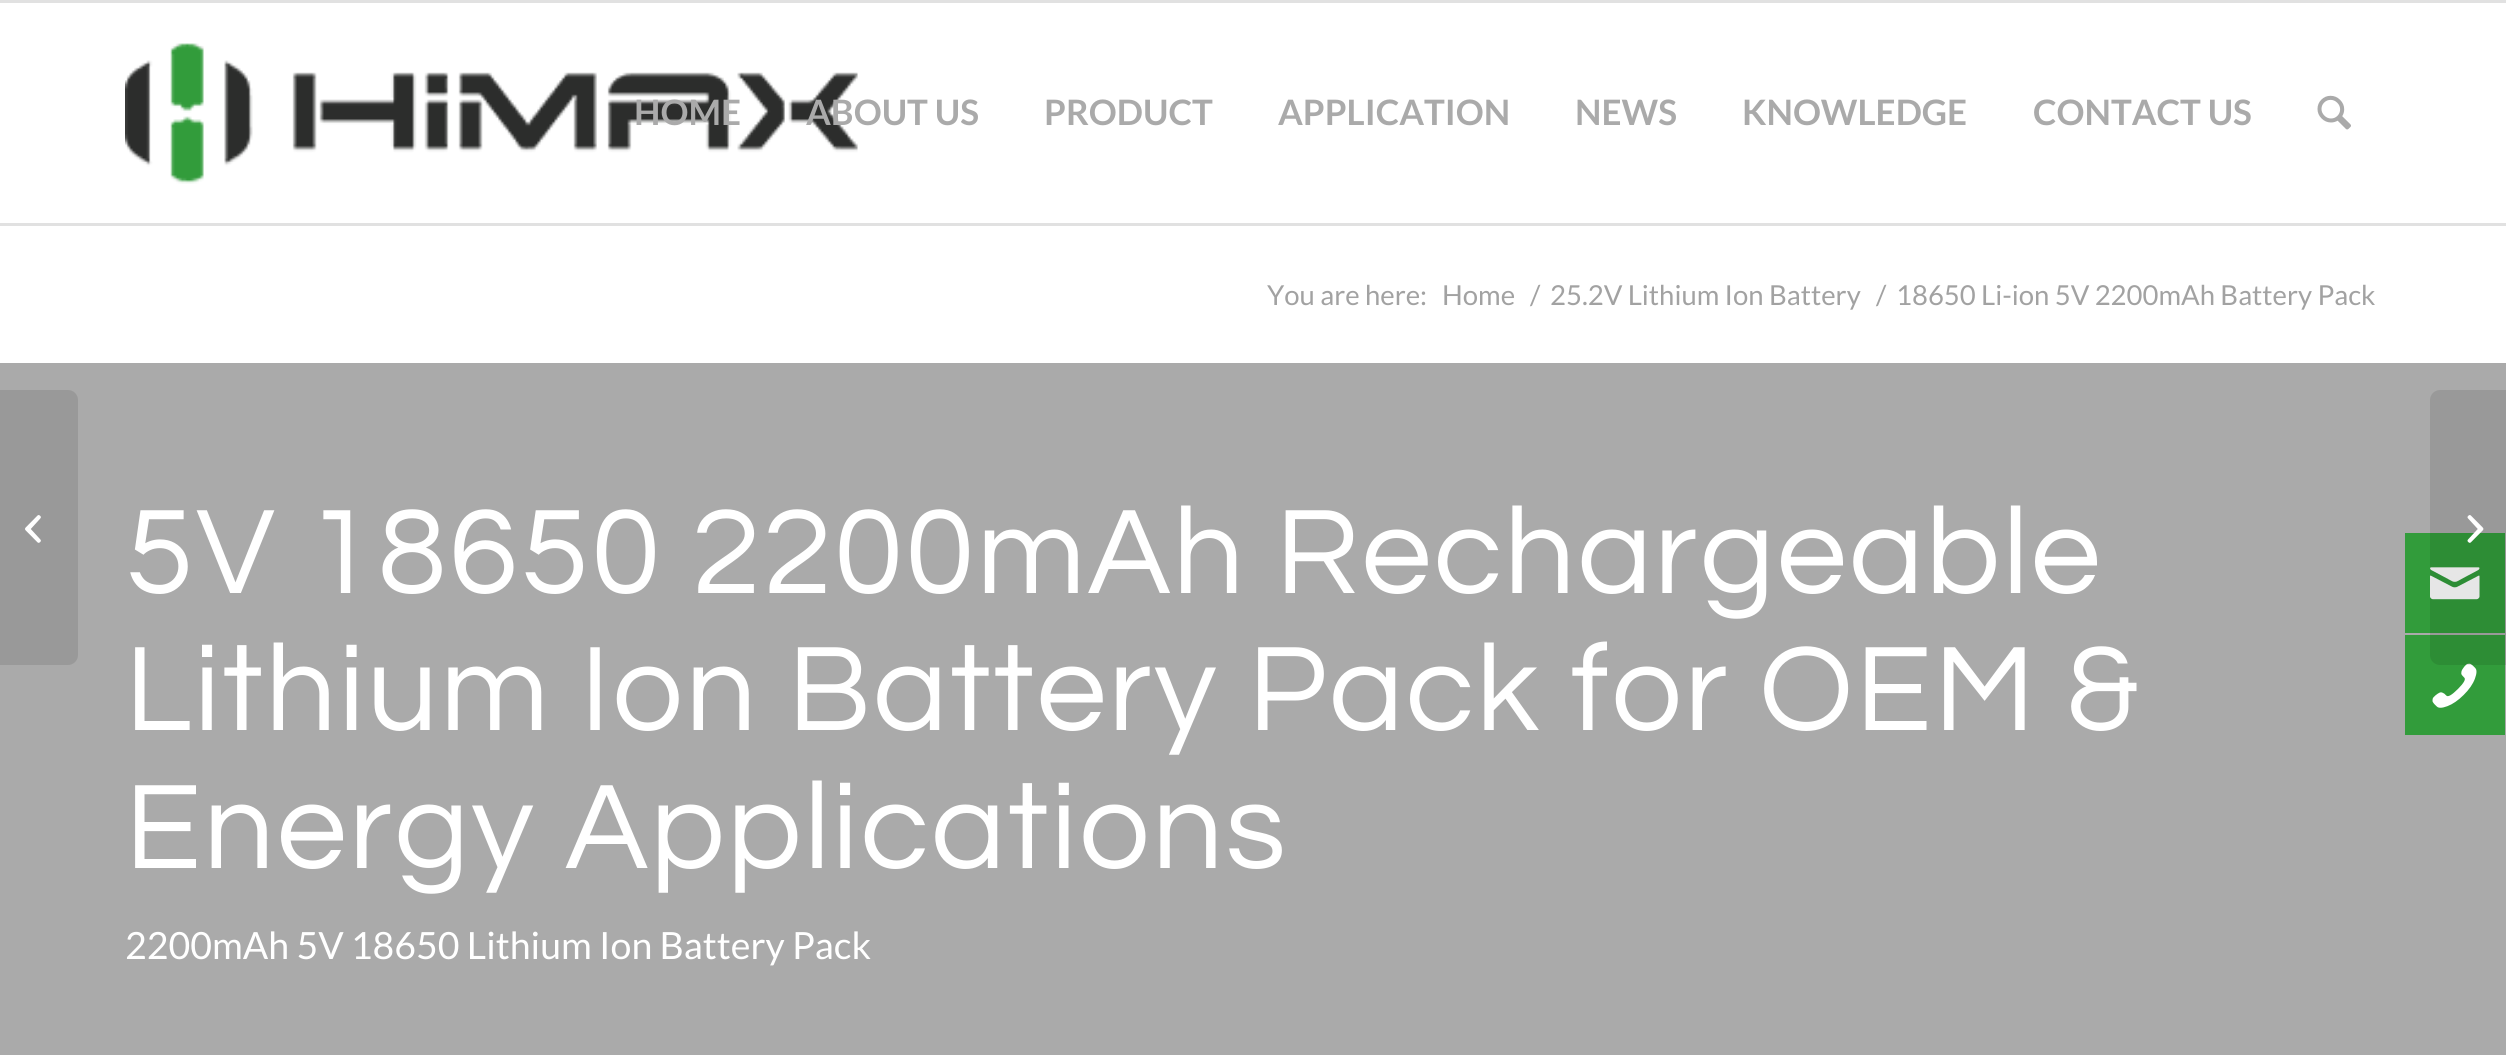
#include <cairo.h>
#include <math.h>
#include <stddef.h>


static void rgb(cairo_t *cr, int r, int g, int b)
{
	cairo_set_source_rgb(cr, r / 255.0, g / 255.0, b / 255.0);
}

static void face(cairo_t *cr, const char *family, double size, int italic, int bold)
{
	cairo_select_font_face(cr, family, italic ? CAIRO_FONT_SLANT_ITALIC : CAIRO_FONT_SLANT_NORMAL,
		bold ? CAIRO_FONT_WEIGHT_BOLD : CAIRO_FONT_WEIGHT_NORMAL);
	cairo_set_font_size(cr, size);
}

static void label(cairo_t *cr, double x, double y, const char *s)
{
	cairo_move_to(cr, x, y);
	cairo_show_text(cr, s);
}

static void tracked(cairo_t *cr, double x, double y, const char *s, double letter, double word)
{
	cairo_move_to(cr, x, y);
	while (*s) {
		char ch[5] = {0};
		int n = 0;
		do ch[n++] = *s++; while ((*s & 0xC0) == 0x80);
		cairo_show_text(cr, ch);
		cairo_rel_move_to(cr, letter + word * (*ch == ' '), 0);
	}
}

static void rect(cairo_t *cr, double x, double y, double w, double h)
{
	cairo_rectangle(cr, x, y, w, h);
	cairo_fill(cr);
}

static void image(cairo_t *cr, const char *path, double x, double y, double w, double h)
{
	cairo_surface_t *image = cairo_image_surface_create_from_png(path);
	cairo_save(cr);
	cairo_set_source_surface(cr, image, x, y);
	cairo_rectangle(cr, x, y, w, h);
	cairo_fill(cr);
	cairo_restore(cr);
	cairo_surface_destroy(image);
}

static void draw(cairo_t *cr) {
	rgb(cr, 255, 255, 255);
	cairo_paint(cr);
	rgb(cr, 225, 225, 225);
	rect(cr, 0, 0, 2506, 3);
	rect(cr, 0, 223, 2506, 3);
	image(cr, "image0.png", 125, 43, 733, 141);
	face(cr, "Lato", 35, 0, 1);
	rgb(cr, 170, 170, 170);
	label(cr, 634, 125, "HOME");
	label(cr, 806, 125, "ABOUT US");
	label(cr, 1044, 125, "PRODUCT");
	label(cr, 1278, 125, "APPLICATION");
	label(cr, 1575, 125, "NEWS");
	label(cr, 1742, 125, "KNOWLEDGE");
	label(cr, 2033, 125, "CONTACT US");
	image(cr, "image1.png", 2317, 95, 34, 35);
	rect(cr, 0, 363, 2506, 692);
	rgb(cr, 153, 153, 153);
	cairo_new_path(cr);
	cairo_move_to(cr, 0, 390);
	cairo_line_to(cr, 68, 390);
	cairo_curve_to(cr, 73.5, 390, 78, 394.5, 78, 400);
	cairo_line_to(cr, 78, 655);
	cairo_curve_to(cr, 78, 660.5, 73.5, 665, 68, 665);
	cairo_line_to(cr, 0, 665);
	cairo_close_path(cr);
	cairo_fill(cr);
	image(cr, "image2.png", 25, 515, 16, 28);
	face(cr, "Lato", 27.5, 0, 0);
	rgb(cr, 162, 162, 162);
	label(cr, 1267, 305, "You are here:");
	label(cr, 1442, 305, "Home");
	label(cr, 1530, 305, "/");
	label(cr, 1550, 305, "25.2V Lithium Ion Battery");
	label(cr, 1876, 305, "/");
	label(cr, 1896, 305, "18650 Li-ion 5V 2200mAh Battery Pack");
	face(cr, "Questrial", 125, 0, 0);
	rgb(cr, 255, 255, 255);
	tracked(cr, 125, 593, "5V 18650 2200mAh Rechargeable", 2.5, 0);
	tracked(cr, 125, 730, "Lithium Ion Battery Pack for OEM &", 2.5, 0);
	tracked(cr, 125, 868, "Energy Applications", 2.5, 0);
	face(cr, "Lato", 37.5, 0, 0);
	label(cr, 125, 959, "2200mAh 5V 18650 Lithium Ion Battery Pack");
	rgb(cr, 50, 156, 59);
	rect(cr, 2405, 533, 100, 100);
	image(cr, "image3.png", 2430, 567, 50, 33);
	rect(cr, 2405, 635, 100, 100);
	image(cr, "image4.png", 2432, 663, 45, 45);
	cairo_set_source_rgba(cr, 0, 0, 0, 0.1);
	cairo_new_path(cr);
	cairo_move_to(cr, 2440, 390);
	cairo_line_to(cr, 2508, 390);
	cairo_line_to(cr, 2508, 665);
	cairo_line_to(cr, 2440, 665);
	cairo_curve_to(cr, 2434.5, 665, 2430, 660.5, 2430, 655);
	cairo_line_to(cr, 2430, 400);
	cairo_curve_to(cr, 2430, 394.5, 2434.5, 390, 2440, 390);
	cairo_close_path(cr);
	cairo_fill(cr);
	image(cr, "image5.png", 2467, 515, 17, 28);
}

int main(void) {
	cairo_surface_t *surface = cairo_image_surface_create(CAIRO_FORMAT_RGB24, 2506, 1055);
	cairo_t *cr = cairo_create(surface);
	cairo_font_options_t *options = cairo_font_options_create();
	cairo_font_options_set_hint_metrics(options, CAIRO_HINT_METRICS_OFF);
	cairo_font_options_set_hint_style(options, CAIRO_HINT_STYLE_NONE);
	cairo_set_font_options(cr, options);
	cairo_set_miter_limit(cr, 4);
	draw(cr);
	cairo_surface_write_to_png(surface, "render.png");
	cairo_font_options_destroy(options);
	cairo_destroy(cr);
	cairo_surface_destroy(surface);
	return 0;
}
